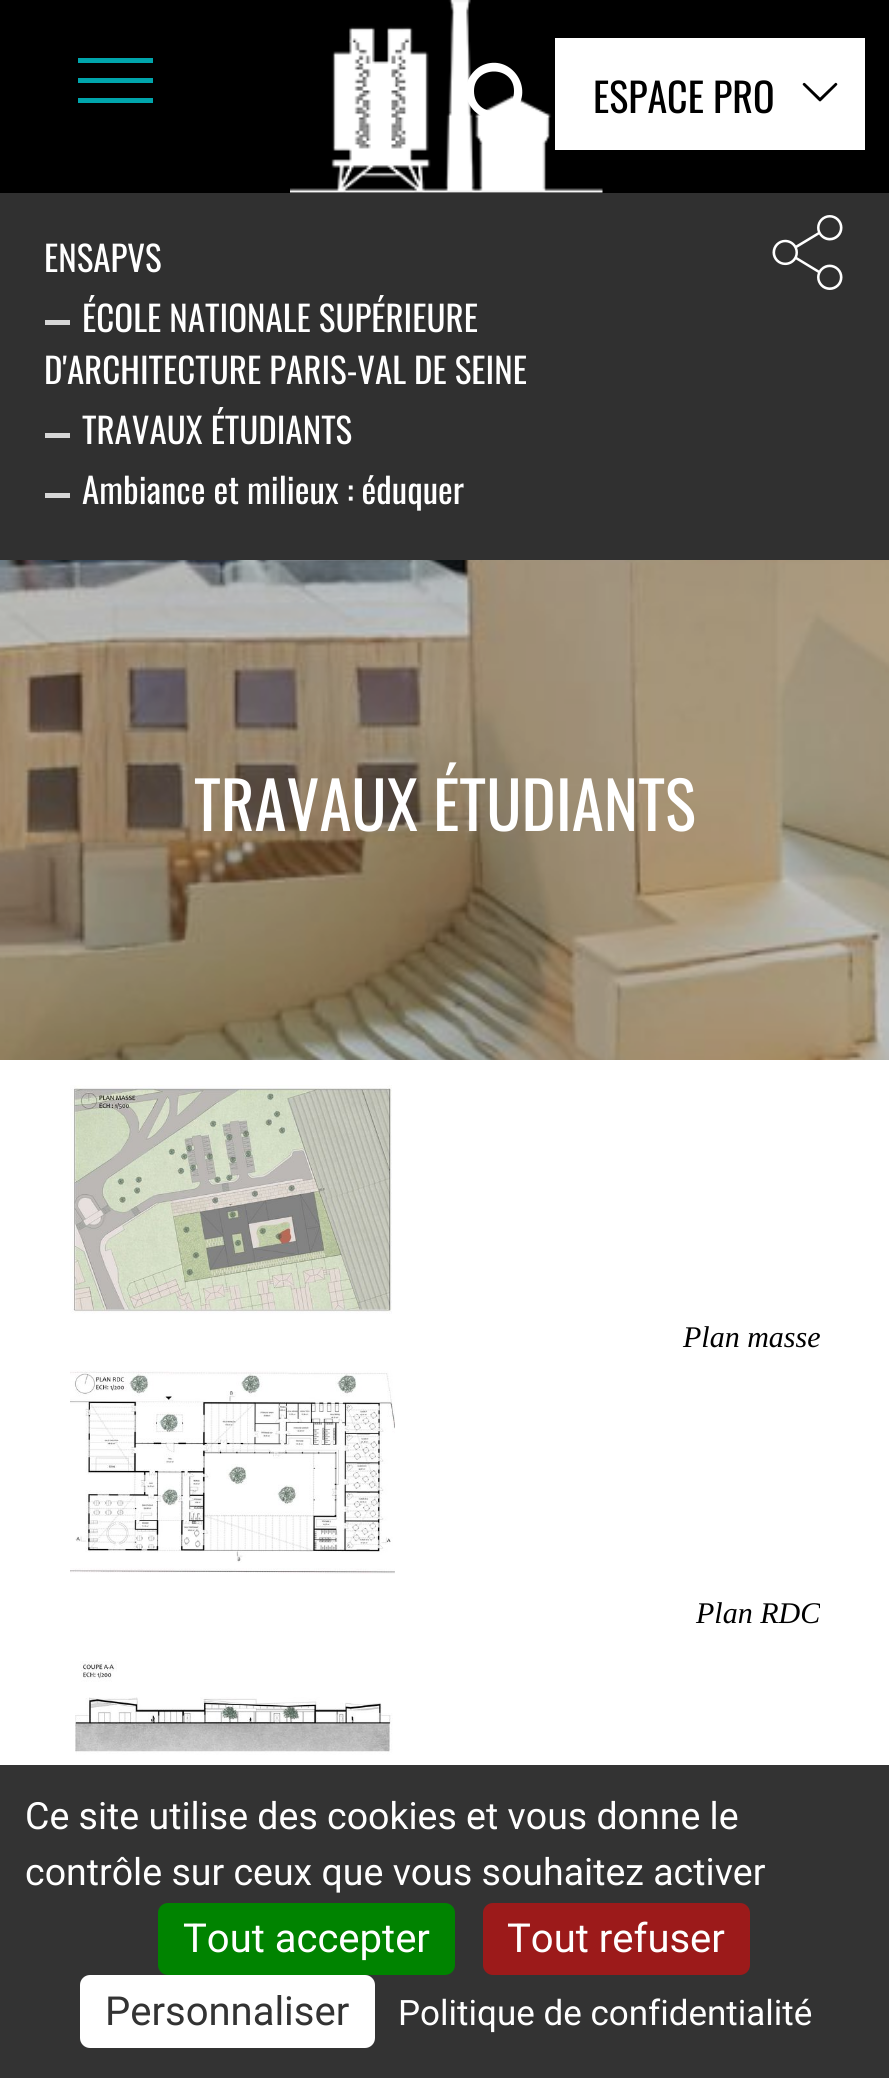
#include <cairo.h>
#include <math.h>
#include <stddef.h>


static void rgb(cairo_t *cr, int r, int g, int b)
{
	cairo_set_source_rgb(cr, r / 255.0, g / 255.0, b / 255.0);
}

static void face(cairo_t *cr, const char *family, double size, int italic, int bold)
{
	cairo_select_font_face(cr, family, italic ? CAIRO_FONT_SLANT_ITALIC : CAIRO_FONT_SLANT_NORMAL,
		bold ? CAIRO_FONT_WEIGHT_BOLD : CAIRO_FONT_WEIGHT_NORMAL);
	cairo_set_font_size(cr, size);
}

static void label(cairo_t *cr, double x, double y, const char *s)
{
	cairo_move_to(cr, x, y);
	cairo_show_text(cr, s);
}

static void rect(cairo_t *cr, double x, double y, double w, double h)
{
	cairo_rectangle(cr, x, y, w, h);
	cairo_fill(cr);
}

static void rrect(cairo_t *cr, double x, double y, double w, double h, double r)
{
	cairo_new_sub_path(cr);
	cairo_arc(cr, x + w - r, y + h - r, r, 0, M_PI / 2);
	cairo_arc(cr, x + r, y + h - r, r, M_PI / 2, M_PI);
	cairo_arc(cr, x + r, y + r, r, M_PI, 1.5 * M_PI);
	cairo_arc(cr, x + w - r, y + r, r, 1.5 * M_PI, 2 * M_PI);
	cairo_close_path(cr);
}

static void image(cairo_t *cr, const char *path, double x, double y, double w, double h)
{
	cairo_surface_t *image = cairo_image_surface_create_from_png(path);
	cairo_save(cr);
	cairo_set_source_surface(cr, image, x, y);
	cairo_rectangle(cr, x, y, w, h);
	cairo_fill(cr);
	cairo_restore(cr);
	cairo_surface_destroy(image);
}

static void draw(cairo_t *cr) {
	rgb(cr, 255, 255, 255);
	cairo_paint(cr);
	rgb(cr, 0, 0, 0);
	rect(cr, 0, 0, 889, 193);
	rgb(cr, 0, 165, 172);
	rect(cr, 78, 78, 75, 5);
	rect(cr, 78, 58, 75, 5);
	rect(cr, 78, 98, 75, 5);
	image(cr, "image0.png", 290, 0, 313, 193);
	rgb(cr, 255, 255, 255);
	cairo_new_path(cr);
	cairo_move_to(cr, 534, 125);
	cairo_line_to(cr, 528, 131);
	cairo_line_to(cr, 511, 114);
	cairo_curve_to(cr, 498, 123, 480, 120, 471, 107);
	cairo_curve_to(cr, 465, 99, 464, 89, 468, 80);
	cairo_curve_to(cr, 471, 74, 476, 68, 483, 65);
	cairo_curve_to(cr, 510, 54, 533, 86, 517, 108);
	cairo_close_path(cr);
	cairo_move_to(cr, 474, 91);
	cairo_curve_to(cr, 474, 118, 514, 118, 514, 91);
	cairo_curve_to(cr, 514, 65, 474, 65, 474, 91);
	cairo_close_path(cr);
	cairo_fill(cr);
	rect(cr, 555, 38, 310, 112);
	face(cr, "Oswald", 40, 0, 0);
	rgb(cr, 0, 0, 0);
	label(cr, 593, 113, "ESPACE PRO");
	image(cr, "image1.png", 802, 82, 36, 20);
	rgb(cr, 48, 48, 48);
	rect(cr, 0, 193, 889, 367);
	face(cr, "Oswald", 35, 0, 0);
	rgb(cr, 255, 255, 255);
	label(cr, 44, 272, "ENSAPVS");
	rgb(cr, 214, 214, 214);
	rect(cr, 45, 320, 25, 5);
	rgb(cr, 255, 255, 255);
	label(cr, 82, 332, "ÉCOLE NATIONALE SUPÉRIEURE");
	label(cr, 44, 384, "D'ARCHITECTURE PARIS-VAL DE SEINE");
	rgb(cr, 214, 214, 214);
	rect(cr, 45, 433, 25, 5);
	rgb(cr, 255, 255, 255);
	label(cr, 82, 444, "TRAVAUX ÉTUDIANTS");
	rgb(cr, 214, 214, 214);
	rect(cr, 45, 493, 25, 5);
	rgb(cr, 255, 255, 255);
	label(cr, 82, 504, "Ambiance et milieux : éduquer");
	image(cr, "image2.png", 772, 215, 71, 75);
	image(cr, "image3.png", 0, 560, 889, 500);
	face(cr, "Oswald", 65, 0, 0);
	label(cr, 194, 831, "TRAVAUX ÉTUDIANTS");
	image(cr, "image4.png", 70, 1085, 322, 229);
	face(cr, "Liberation Serif", 30, 1, 0);
	rgb(cr, 0, 0, 0);
	label(cr, 683, 1347, "Plan masse");
	image(cr, "image5.png", 70, 1370, 325, 204);
	cairo_save(cr);
	cairo_rectangle(cr, 70, 1085, 750, 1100);
	cairo_clip(cr);
	label(cr, 696, 1623, "Plan RDC");
	cairo_restore(cr);
	image(cr, "image6.png", 75, 1661, 318, 104);
	rgb(cr, 51, 51, 51);
	rect(cr, 0, 1765, 889, 313);
	face(cr, "Roboto", 37.5, 0, 0);
	rgb(cr, 255, 255, 255);
	label(cr, 25, 1829, "Ce site utilise des cookies et vous donne le");
	label(cr, 25, 1885, "contrôle sur ceux que vous souhaitez activer");
	rgb(cr, 0, 131, 0);
	rrect(cr, 158, 1903, 297, 72, 10);
	cairo_fill(cr);
	face(cr, "Roboto", 40, 0, 0);
	rgb(cr, 255, 255, 255);
	label(cr, 183, 1952, "Tout accepter");
	rgb(cr, 156, 26, 26);
	rrect(cr, 483, 1903, 267, 72, 10);
	cairo_fill(cr);
	rgb(cr, 255, 255, 255);
	label(cr, 507, 1952, "Tout refuser");
	rrect(cr, 80, 1975, 295, 73, 10);
	cairo_fill(cr);
	rgb(cr, 51, 51, 51);
	label(cr, 105, 2025, "Personnaliser");
	face(cr, "Roboto", 35, 0, 0);
	rgb(cr, 255, 255, 255);
	label(cr, 398, 2025, "Politique de confidentialité");
}

int main(void) {
	cairo_surface_t *surface = cairo_image_surface_create(CAIRO_FORMAT_RGB24, 889, 2078);
	cairo_t *cr = cairo_create(surface);
	cairo_font_options_t *options = cairo_font_options_create();
	cairo_font_options_set_hint_metrics(options, CAIRO_HINT_METRICS_OFF);
	cairo_font_options_set_hint_style(options, CAIRO_HINT_STYLE_NONE);
	cairo_set_font_options(cr, options);
	cairo_set_miter_limit(cr, 4);
	draw(cr);
	cairo_surface_write_to_png(surface, "render.png");
	cairo_font_options_destroy(options);
	cairo_destroy(cr);
	cairo_surface_destroy(surface);
	return 0;
}
